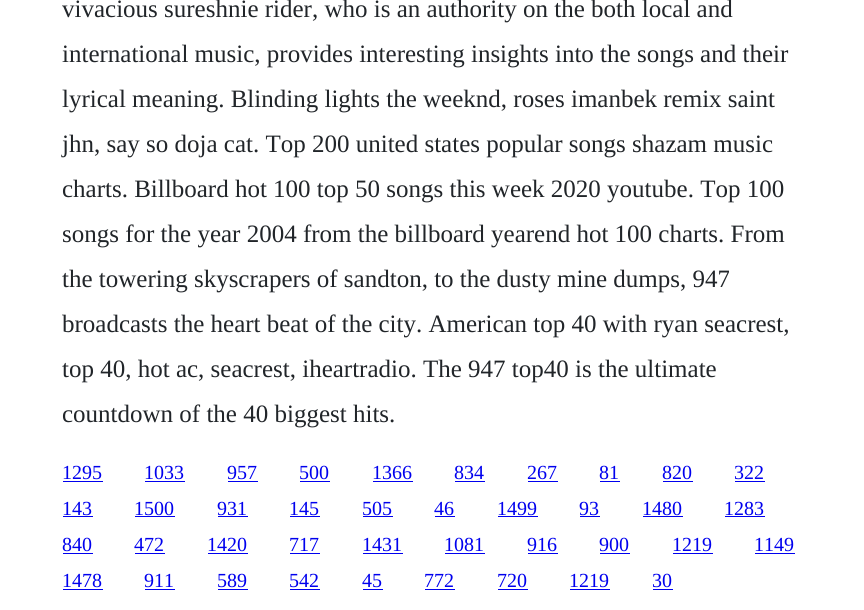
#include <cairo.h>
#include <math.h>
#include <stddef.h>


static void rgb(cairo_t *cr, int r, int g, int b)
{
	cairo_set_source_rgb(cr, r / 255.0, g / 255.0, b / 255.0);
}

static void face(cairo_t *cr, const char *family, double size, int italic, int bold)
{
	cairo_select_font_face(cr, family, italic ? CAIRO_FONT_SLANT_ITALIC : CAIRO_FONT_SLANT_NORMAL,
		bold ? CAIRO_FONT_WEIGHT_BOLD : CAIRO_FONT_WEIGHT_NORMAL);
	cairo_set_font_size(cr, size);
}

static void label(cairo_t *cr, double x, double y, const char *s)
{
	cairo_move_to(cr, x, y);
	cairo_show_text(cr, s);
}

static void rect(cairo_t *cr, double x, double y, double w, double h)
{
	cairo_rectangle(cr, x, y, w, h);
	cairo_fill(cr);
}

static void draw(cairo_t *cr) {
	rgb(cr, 255, 255, 255);
	cairo_paint(cr);
	face(cr, "Liberation Serif", 25, 0, 0);
	rgb(cr, 33, 37, 41);
	label(cr, 62, 17, "vivacious sureshnie rider, who is an authority on the both local and");
	label(cr, 62, 62, "international music, provides interesting insights into the songs and their");
	label(cr, 62, 107, "lyrical meaning. Blinding lights the weeknd, roses imanbek remix saint");
	label(cr, 62, 152, "jhn, say so doja cat. Top 200 united states popular songs shazam music");
	label(cr, 62, 197, "charts. Billboard hot 100 top 50 songs this week 2020 youtube. Top 100");
	label(cr, 62, 242, "songs for the year 2004 from the billboard yearend hot 100 charts. From");
	label(cr, 62, 287, "the towering skyscrapers of sandton, to the dusty mine dumps, 947");
	label(cr, 62, 332, "broadcasts the heart beat of the city. American top 40 with ryan seacrest,");
	label(cr, 62, 377, "top 40, hot ac, seacrest, iheartradio. The 947 top40 is the ultimate");
	label(cr, 62, 422, "countdown of the 40 biggest hits.");
	face(cr, "Liberation Serif", 20, 0, 0);
	rgb(cr, 0, 0, 238);
	label(cr, 62, 479, "1295");
	rect(cr, 63, 481, 40, 1);
	label(cr, 144, 479, "1033");
	rect(cr, 145, 481, 40, 1);
	label(cr, 227, 479, "957");
	rect(cr, 228, 481, 30, 1);
	label(cr, 299, 479, "500");
	rect(cr, 300, 481, 30, 1);
	label(cr, 372, 479, "1366");
	rect(cr, 373, 481, 40, 1);
	label(cr, 454, 479, "834");
	rect(cr, 455, 481, 30, 1);
	label(cr, 527, 479, "267");
	rect(cr, 528, 481, 30, 1);
	label(cr, 599, 479, "81");
	rect(cr, 600, 481, 20, 1);
	label(cr, 662, 479, "820");
	rect(cr, 663, 481, 30, 1);
	label(cr, 734, 479, "322");
	rect(cr, 735, 481, 30, 1);
	label(cr, 62, 515, "143");
	rect(cr, 63, 516, 30, 1);
	label(cr, 134, 515, "1500");
	rect(cr, 135, 516, 40, 1);
	label(cr, 217, 515, "931");
	rect(cr, 218, 516, 30, 1);
	label(cr, 289, 515, "145");
	rect(cr, 290, 516, 30, 1);
	label(cr, 362, 515, "505");
	rect(cr, 363, 516, 30, 1);
	label(cr, 434, 515, "46");
	rect(cr, 435, 516, 20, 1);
	label(cr, 497, 515, "1499");
	rect(cr, 498, 516, 40, 1);
	label(cr, 579, 515, "93");
	rect(cr, 580, 516, 20, 1);
	label(cr, 642, 515, "1480");
	rect(cr, 643, 516, 40, 1);
	label(cr, 724, 515, "1283");
	rect(cr, 725, 516, 40, 1);
	label(cr, 62, 551, "840");
	rect(cr, 63, 553, 30, 1);
	label(cr, 134, 551, "472");
	rect(cr, 135, 553, 30, 1);
	label(cr, 207, 551, "1420");
	rect(cr, 208, 553, 40, 1);
	label(cr, 289, 551, "717");
	rect(cr, 290, 553, 30, 1);
	label(cr, 362, 551, "1431");
	rect(cr, 363, 553, 40, 1);
	label(cr, 444, 551, "1081");
	rect(cr, 445, 553, 40, 1);
	label(cr, 527, 551, "916");
	rect(cr, 528, 553, 30, 1);
	label(cr, 599, 551, "900");
	rect(cr, 600, 553, 30, 1);
	label(cr, 672, 551, "1219");
	rect(cr, 673, 553, 40, 1);
	label(cr, 754, 551, "1149");
	rect(cr, 755, 553, 40, 1);
	label(cr, 62, 587, "1478");
	rect(cr, 63, 589, 40, 1);
	label(cr, 144, 587, "911");
	rect(cr, 145, 589, 30, 1);
	label(cr, 217, 587, "589");
	rect(cr, 218, 589, 30, 1);
	label(cr, 289, 587, "542");
	rect(cr, 290, 589, 30, 1);
	label(cr, 362, 587, "45");
	rect(cr, 363, 589, 20, 1);
	label(cr, 424, 587, "772");
	rect(cr, 425, 589, 30, 1);
	label(cr, 497, 587, "720");
	rect(cr, 498, 589, 30, 1);
	label(cr, 569, 587, "1219");
	rect(cr, 570, 589, 40, 1);
	label(cr, 652, 587, "30");
	rect(cr, 653, 589, 20, 1);
}

int main(void) {
	cairo_surface_t *surface = cairo_image_surface_create(CAIRO_FORMAT_RGB24, 864, 610);
	cairo_t *cr = cairo_create(surface);
	cairo_font_options_t *options = cairo_font_options_create();
	cairo_font_options_set_hint_metrics(options, CAIRO_HINT_METRICS_OFF);
	cairo_font_options_set_hint_style(options, CAIRO_HINT_STYLE_NONE);
	cairo_set_font_options(cr, options);
	cairo_set_miter_limit(cr, 4);
	draw(cr);
	cairo_surface_write_to_png(surface, "render.png");
	cairo_font_options_destroy(options);
	cairo_destroy(cr);
	cairo_surface_destroy(surface);
	return 0;
}
